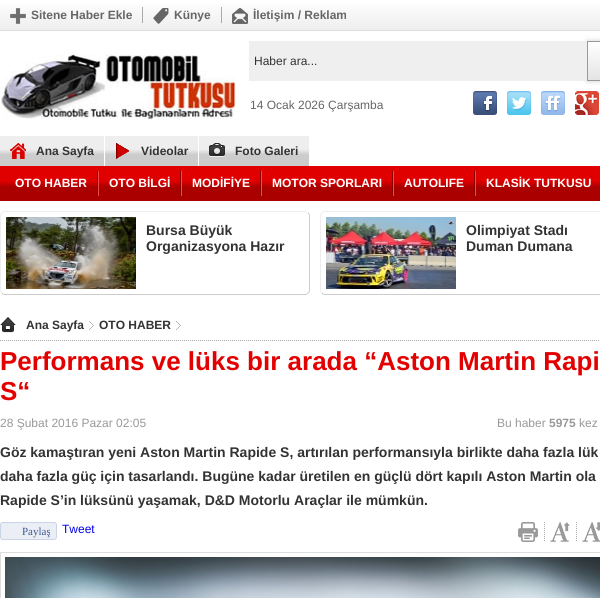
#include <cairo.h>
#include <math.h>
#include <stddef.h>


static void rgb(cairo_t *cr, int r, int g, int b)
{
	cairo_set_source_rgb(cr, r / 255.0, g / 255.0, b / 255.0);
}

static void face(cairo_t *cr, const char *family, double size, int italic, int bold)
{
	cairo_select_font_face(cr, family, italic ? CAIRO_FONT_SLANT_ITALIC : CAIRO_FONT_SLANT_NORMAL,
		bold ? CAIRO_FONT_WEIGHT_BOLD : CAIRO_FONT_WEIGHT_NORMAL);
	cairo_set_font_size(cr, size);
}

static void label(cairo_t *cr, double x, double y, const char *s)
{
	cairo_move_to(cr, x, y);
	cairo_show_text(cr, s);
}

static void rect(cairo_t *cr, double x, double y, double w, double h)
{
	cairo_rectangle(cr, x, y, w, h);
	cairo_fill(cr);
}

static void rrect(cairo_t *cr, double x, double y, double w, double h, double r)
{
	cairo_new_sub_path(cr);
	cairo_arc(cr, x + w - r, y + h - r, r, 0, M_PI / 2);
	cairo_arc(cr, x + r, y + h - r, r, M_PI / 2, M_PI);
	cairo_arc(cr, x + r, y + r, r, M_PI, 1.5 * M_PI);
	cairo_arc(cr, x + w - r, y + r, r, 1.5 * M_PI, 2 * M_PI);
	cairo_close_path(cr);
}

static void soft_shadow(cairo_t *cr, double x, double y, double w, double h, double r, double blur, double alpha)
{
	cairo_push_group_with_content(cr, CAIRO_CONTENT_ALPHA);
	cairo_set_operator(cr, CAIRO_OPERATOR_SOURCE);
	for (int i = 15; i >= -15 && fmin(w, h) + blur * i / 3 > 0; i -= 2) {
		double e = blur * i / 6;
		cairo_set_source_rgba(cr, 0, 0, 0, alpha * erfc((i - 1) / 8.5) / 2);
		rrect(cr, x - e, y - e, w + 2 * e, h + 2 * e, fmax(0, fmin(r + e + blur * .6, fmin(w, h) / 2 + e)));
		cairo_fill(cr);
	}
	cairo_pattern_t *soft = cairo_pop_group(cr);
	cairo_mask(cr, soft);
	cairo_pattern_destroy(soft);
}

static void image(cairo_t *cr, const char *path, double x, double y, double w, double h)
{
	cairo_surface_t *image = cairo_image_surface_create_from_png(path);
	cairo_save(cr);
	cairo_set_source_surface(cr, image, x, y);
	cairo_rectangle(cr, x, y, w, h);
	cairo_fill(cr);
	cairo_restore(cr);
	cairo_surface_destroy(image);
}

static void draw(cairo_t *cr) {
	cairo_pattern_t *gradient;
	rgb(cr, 255, 255, 255);
	cairo_paint(cr);
	gradient = cairo_pattern_create_linear(480, 0, 480, 30);
	cairo_pattern_add_color_stop_rgba(gradient, 0, 1, 1, 1, 1);
	cairo_pattern_add_color_stop_rgba(gradient, 1, 0.933, 0.933, 0.933, 1);
	cairo_set_source(cr, gradient);
	cairo_pattern_destroy(gradient);
	rect(cr, 0, 4, 600, 26);
	rgb(cr, 221, 221, 221);
	rect(cr, 0, 30, 600, 1);
	image(cr, "image0.png", 10, 8, 16, 16);
	face(cr, "Liberation Sans", 12, 0, 1);
	rgb(cr, 102, 102, 102);
	label(cr, 31, 19, "Sitene Haber Ekle");
	rgb(cr, 170, 170, 170);
	rect(cr, 142, 7, 1, 16);
	image(cr, "image1.png", 153, 8, 16, 16);
	rgb(cr, 102, 102, 102);
	label(cr, 174, 19, "Künye");
	rgb(cr, 170, 170, 170);
	rect(cr, 221, 7, 1, 16);
	image(cr, "image2.png", 232, 8, 16, 16);
	rgb(cr, 102, 102, 102);
	label(cr, 253, 19, "İletişim / Reklam");
	image(cr, "image3.png", 1, 53, 235, 66);
	rgb(cr, 204, 204, 204);
	soft_shadow(cr, 587, 41, 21, 40, 0, 2.5, 1);
	rgb(cr, 239, 239, 239);
	rect(cr, 249, 41, 338, 40);
	face(cr, "Liberation Sans", 12, 0, 0);
	rgb(cr, 51, 51, 51);
	label(cr, 254, 65, "Haber ara...");
	gradient = cairo_pattern_create_linear(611, 42, 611, 80);
	cairo_pattern_add_color_stop_rgba(gradient, 0, 1, 1, 1, 1);
	cairo_pattern_add_color_stop_rgba(gradient, 1, 0.894, 0.894, 0.894, 1);
	cairo_set_source(cr, gradient);
	cairo_pattern_destroy(gradient);
	rect(cr, 588, 42, 12, 38);
	cairo_rectangle(cr, 587.5, 41.5, 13, 39);
	rgb(cr, 153, 153, 153);
	cairo_set_line_width(cr, 1);
	cairo_stroke(cr);
	rgb(cr, 102, 102, 102);
	label(cr, 250, 109, "14 Ocak 2026 Çarşamba");
	image(cr, "image4.png", 473, 91, 24, 24);
	image(cr, "image5.png", 507, 91, 24, 24);
	image(cr, "image6.png", 541, 91, 24, 24);
	image(cr, "image7.png", 575, 91, 24, 24);
	image(cr, "image8.png", 0, 136, 104, 30);
	image(cr, "image9.png", 10, 143, 16, 16);
	face(cr, "Liberation Sans", 12, 0, 1);
	rgb(cr, 51, 51, 51);
	label(cr, 36, 155, "Ana Sayfa");
	image(cr, "image10.png", 105, 136, 93, 30);
	image(cr, "image11.png", 116, 143, 13, 16);
	label(cr, 141, 155, "Videolar");
	image(cr, "image12.png", 199, 136, 110, 30);
	image(cr, "image13.png", 209, 143, 16, 14);
	label(cr, 235, 155, "Foto Galeri");
	image(cr, "image14.png", 0, 166, 600, 35);
	rgb(cr, 255, 255, 255);
	label(cr, 15, 187, "OTO HABER");
	image(cr, "image15.png", 97, 171, 2, 25);
	label(cr, 109, 187, "OTO BİLGİ");
	image(cr, "image15.png", 180, 171, 2, 25);
	label(cr, 192, 187, "MODİFİYE");
	image(cr, "image15.png", 260, 171, 2, 25);
	label(cr, 272, 187, "MOTOR SPORLARI");
	image(cr, "image15.png", 392, 171, 2, 25);
	label(cr, 404, 187, "AUTOLIFE");
	image(cr, "image15.png", 474, 171, 2, 25);
	label(cr, 486, 187, "KLASİK TUTKUSU");
	cairo_new_path(cr);
	cairo_move_to(cr, 308, 213);
	cairo_curve_to(cr, 309, 213.5, 309.5, 215, 309.5, 216);
	cairo_line_to(cr, 309.5, 290);
	cairo_curve_to(cr, 309.5, 291, 309, 292.5, 308, 293);
	cairo_curve_to(cr, 307.5, 294, 306, 294.5, 305, 294.5);
	cairo_line_to(cr, 5, 294.5);
	cairo_curve_to(cr, 4, 294.5, 2.5, 294, 2, 293);
	rgb(cr, 204, 204, 204);
	cairo_stroke(cr);
	cairo_new_path(cr);
	cairo_move_to(cr, 2, 293);
	cairo_curve_to(cr, 1, 292.5, 0.5, 291, 0.5, 290);
	cairo_line_to(cr, 0.5, 216);
	cairo_curve_to(cr, 0.5, 215, 1, 213.5, 2, 213);
	cairo_curve_to(cr, 2.5, 212, 4, 211.5, 5, 211.5);
	cairo_line_to(cr, 305, 211.5);
	cairo_curve_to(cr, 306, 211.5, 307.5, 212, 308, 213);
	rgb(cr, 238, 238, 238);
	cairo_stroke(cr);
	image(cr, "image16.png", 6, 217, 130, 72);
	face(cr, "Liberation Sans", 14, 0, 1);
	rgb(cr, 51, 51, 51);
	label(cr, 146, 235, "Bursa Büyük");
	label(cr, 146, 251, "Organizasyona Hazır");
	cairo_new_path(cr);
	cairo_move_to(cr, 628, 213);
	cairo_curve_to(cr, 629, 213.5, 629.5, 215, 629.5, 216);
	cairo_line_to(cr, 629.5, 290);
	cairo_curve_to(cr, 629.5, 291, 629, 292.5, 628, 293);
	cairo_curve_to(cr, 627.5, 294, 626, 294.5, 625, 294.5);
	cairo_line_to(cr, 325, 294.5);
	cairo_curve_to(cr, 324, 294.5, 322.5, 294, 322, 293);
	rgb(cr, 204, 204, 204);
	cairo_stroke(cr);
	cairo_new_path(cr);
	cairo_move_to(cr, 322, 293);
	cairo_curve_to(cr, 321, 292.5, 320.5, 291, 320.5, 290);
	cairo_line_to(cr, 320.5, 216);
	cairo_curve_to(cr, 320.5, 215, 321, 213.5, 322, 213);
	cairo_curve_to(cr, 322.5, 212, 324, 211.5, 325, 211.5);
	cairo_line_to(cr, 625, 211.5);
	cairo_curve_to(cr, 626, 211.5, 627.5, 212, 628, 213);
	rgb(cr, 238, 238, 238);
	cairo_stroke(cr);
	image(cr, "image17.png", 326, 217, 130, 72);
	rgb(cr, 51, 51, 51);
	label(cr, 466, 235, "Olimpiyat Stadı");
	label(cr, 466, 251, "Duman Dumana");
	cairo_new_path(cr);
	cairo_move_to(cr, 0, 340.5);
	cairo_line_to(cr, 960, 340.5);
	rgb(cr, 170, 170, 170);
	cairo_set_dash(cr, (double[]){1, 1}, 2, 0);
	cairo_stroke(cr);
	image(cr, "image18.png", 0, 317, 16, 16);
	face(cr, "Liberation Sans", 12, 0, 1);
	rgb(cr, 51, 51, 51);
	label(cr, 26, 329, "Ana Sayfa");
	image(cr, "image19.png", 89, 321, 5, 9);
	label(cr, 99, 329, "OTO HABER");
	image(cr, "image19.png", 176, 321, 5, 9);
	face(cr, "Liberation Sans", 26, 0, 1);
	rgb(cr, 226, 0, 0);
	label(cr, 0, 370, "Performans ve lüks bir arada “Aston Martin Rapi");
	label(cr, 0, 400, "S“");
	face(cr, "Liberation Sans", 12, 0, 0);
	rgb(cr, 153, 153, 153);
	label(cr, 0, 427, "28 Şubat 2016 Pazar 02:05");
	label(cr, 497, 427, "Bu haber");
	face(cr, "Liberation Sans", 12, 0, 1);
	label(cr, 549, 427, "5975");
	face(cr, "Liberation Sans", 12, 0, 0);
	label(cr, 579, 427, "kez");
	face(cr, "Liberation Sans", 14, 0, 1);
	rgb(cr, 51, 51, 51);
	label(cr, 0, 457, "Göz kamaştıran yeni Aston Martin Rapide S, artırılan performansıyla birlikte daha fazla lük");
	label(cr, 0, 481, "daha fazla güç için tasarlandı. Bugüne kadar üretilen en güçlü dört kapılı Aston Martin ola");
	label(cr, 0, 505, "Rapide S’in lüksünü yaşamak, D&D Motorlu Araçlar ile mümkün.");
	rgb(cr, 236, 238, 245);
	rrect(cr, 0.5, 522.5, 56, 17, 2.5);
	cairo_fill_preserve(cr);
	rgb(cr, 202, 212, 231);
	cairo_set_dash(cr, NULL, 0, 0);
	cairo_stroke(cr);
	face(cr, "Liberation Serif", 11, 0, 0);
	rgb(cr, 59, 89, 152);
	label(cr, 22, 535, "Paylaş");
	face(cr, "Liberation Sans", 12, 0, 0);
	rgb(cr, 0, 0, 238);
	label(cr, 62, 533, "Tweet");
	image(cr, "image20.png", 518, 522, 20, 20);
	cairo_new_path(cr);
	cairo_move_to(cr, 544.5, 522);
	cairo_line_to(cr, 544.5, 542);
	rgb(cr, 170, 170, 170);
	cairo_set_dash(cr, (double[]){1, 1}, 2, 0);
	cairo_stroke(cr);
	image(cr, "image21.png", 550, 522, 20, 20);
	cairo_new_path(cr);
	cairo_move_to(cr, 576.5, 522);
	cairo_line_to(cr, 576.5, 542);
	cairo_stroke(cr);
	image(cr, "image22.png", 582, 522, 18, 20);
	cairo_rectangle(cr, 0.5, 552.5, 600, 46);
	rgb(cr, 221, 221, 221);
	cairo_set_dash(cr, NULL, 0, 0);
	cairo_stroke(cr);
	image(cr, "image23.png", 5, 557, 595, 41);
}

int main(void) {
	cairo_surface_t *surface = cairo_image_surface_create(CAIRO_FORMAT_RGB24, 600, 598);
	cairo_t *cr = cairo_create(surface);
	cairo_font_options_t *options = cairo_font_options_create();
	cairo_font_options_set_hint_metrics(options, CAIRO_HINT_METRICS_OFF);
	cairo_font_options_set_hint_style(options, CAIRO_HINT_STYLE_NONE);
	cairo_set_font_options(cr, options);
	cairo_set_miter_limit(cr, 4);
	draw(cr);
	cairo_surface_write_to_png(surface, "render.png");
	cairo_font_options_destroy(options);
	cairo_destroy(cr);
	cairo_surface_destroy(surface);
	return 0;
}
